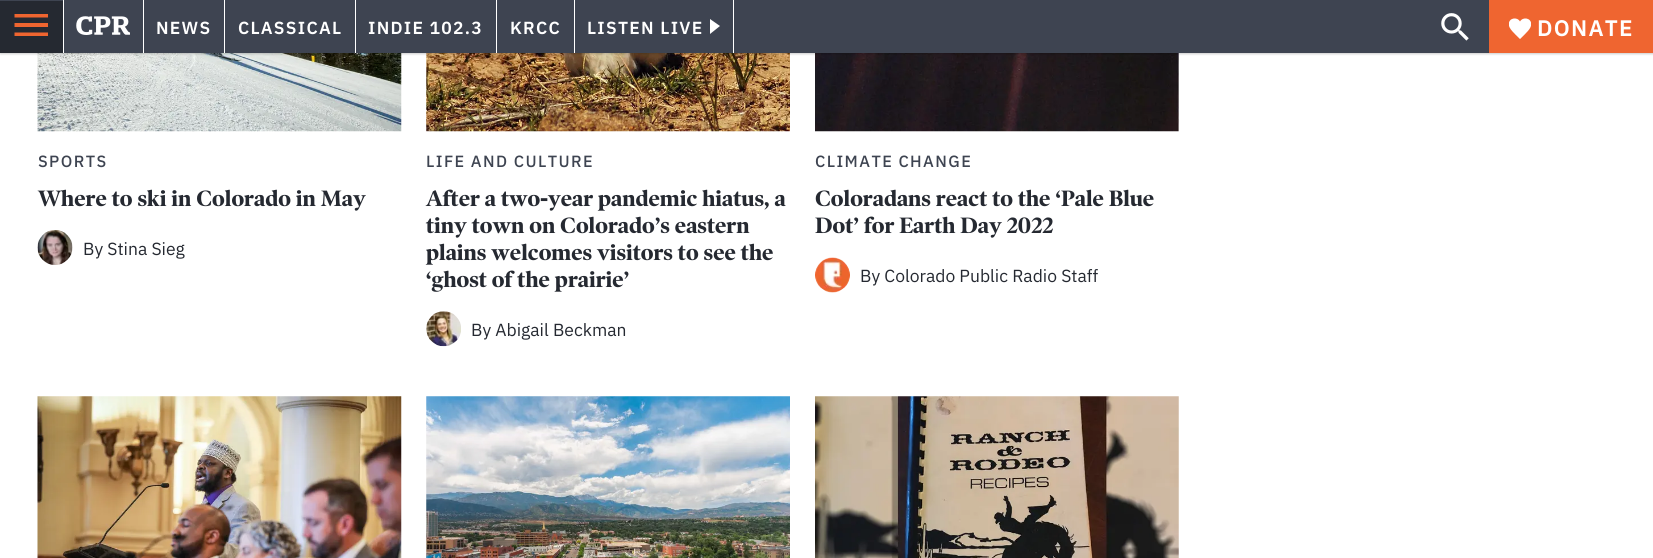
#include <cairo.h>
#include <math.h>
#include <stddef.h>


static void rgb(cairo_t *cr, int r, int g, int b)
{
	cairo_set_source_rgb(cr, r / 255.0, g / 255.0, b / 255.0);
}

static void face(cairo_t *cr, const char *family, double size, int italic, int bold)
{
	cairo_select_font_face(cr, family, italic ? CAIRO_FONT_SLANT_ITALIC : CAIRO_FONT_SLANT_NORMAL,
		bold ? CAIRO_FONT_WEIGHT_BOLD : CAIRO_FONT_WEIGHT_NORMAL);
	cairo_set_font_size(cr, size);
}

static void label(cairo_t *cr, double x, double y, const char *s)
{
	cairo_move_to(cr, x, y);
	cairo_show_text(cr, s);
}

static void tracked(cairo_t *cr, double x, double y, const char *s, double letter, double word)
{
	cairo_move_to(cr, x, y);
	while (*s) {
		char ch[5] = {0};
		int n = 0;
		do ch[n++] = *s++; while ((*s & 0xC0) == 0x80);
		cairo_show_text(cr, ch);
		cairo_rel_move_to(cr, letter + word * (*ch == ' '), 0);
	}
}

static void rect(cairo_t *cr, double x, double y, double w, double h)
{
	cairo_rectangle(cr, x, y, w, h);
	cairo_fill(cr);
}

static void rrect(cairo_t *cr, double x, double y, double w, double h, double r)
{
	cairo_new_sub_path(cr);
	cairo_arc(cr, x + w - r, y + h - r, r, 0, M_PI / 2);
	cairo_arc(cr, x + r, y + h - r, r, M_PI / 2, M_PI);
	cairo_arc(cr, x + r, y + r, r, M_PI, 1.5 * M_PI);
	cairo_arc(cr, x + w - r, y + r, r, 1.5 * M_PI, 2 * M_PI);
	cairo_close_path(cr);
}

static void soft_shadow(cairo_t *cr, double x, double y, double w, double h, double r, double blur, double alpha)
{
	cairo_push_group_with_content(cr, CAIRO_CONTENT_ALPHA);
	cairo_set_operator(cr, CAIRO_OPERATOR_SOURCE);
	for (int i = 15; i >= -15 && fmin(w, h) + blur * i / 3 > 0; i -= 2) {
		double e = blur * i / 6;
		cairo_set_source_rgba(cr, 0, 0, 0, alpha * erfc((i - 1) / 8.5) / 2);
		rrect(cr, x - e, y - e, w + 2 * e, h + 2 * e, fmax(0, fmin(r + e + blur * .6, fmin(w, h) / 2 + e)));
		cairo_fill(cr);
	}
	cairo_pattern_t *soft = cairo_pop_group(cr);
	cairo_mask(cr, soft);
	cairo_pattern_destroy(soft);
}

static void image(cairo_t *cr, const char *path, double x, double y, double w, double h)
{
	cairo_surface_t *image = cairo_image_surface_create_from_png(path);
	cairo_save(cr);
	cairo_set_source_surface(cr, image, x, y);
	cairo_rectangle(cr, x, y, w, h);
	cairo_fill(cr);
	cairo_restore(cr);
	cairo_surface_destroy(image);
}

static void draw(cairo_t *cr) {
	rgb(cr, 255, 255, 255);
	cairo_paint(cr);
	image(cr, "image3.png", 37, 53, 365, 79);
	image(cr, "image5.png", 426, 53, 364, 79);
	image(cr, "image7.png", 815, 53, 364, 79);
	rgb(cr, 0, 0, 0);
	soft_shadow(cr, 0, 1, 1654, 53, 0, 1, 0.2);
	rgb(cr, 62, 68, 81);
	rect(cr, 0, 0, 1489, 53);
	rgb(cr, 37, 41, 49);
	rect(cr, 0, 1, 63, 52);
	rgb(cr, 239, 101, 48);
	cairo_new_path(cr);
	cairo_move_to(cr, 14.5, 36);
	cairo_line_to(cr, 48, 36);
	cairo_line_to(cr, 48, 32.5);
	cairo_line_to(cr, 14.5, 32.5);
	cairo_close_path(cr);
	cairo_move_to(cr, 14.5, 27);
	cairo_line_to(cr, 48, 27);
	cairo_line_to(cr, 48, 23);
	cairo_line_to(cr, 14.5, 23);
	cairo_close_path(cr);
	cairo_move_to(cr, 14.5, 14);
	cairo_line_to(cr, 14.5, 17.5);
	cairo_line_to(cr, 48, 17.5);
	cairo_line_to(cr, 48, 14);
	cairo_close_path(cr);
	cairo_fill(cr);
	rgb(cr, 255, 255, 255);
	rect(cr, 143, 0, 1, 53);
	rect(cr, 63, 0, 1, 53);
	image(cr, "image0.png", 76, 16, 54, 19);
	rect(cr, 224, 0, 1, 53);
	face(cr, "IBM Plex Sans SemiBold", 17.5, 0, 0);
	tracked(cr, 156, 34, "NEWS", 1.25, 0);
	rect(cr, 355, 0, 1, 53);
	tracked(cr, 238, 34, "CLASSICAL", 1.25, 0);
	rect(cr, 496, 0, 1, 53);
	tracked(cr, 368, 34, "INDIE 102.3", 1.25, 0);
	rect(cr, 574, 0, 1, 53);
	tracked(cr, 510, 34, "KRCC", 1.25, 0);
	rect(cr, 733, 0, 1, 53);
	tracked(cr, 587, 34, "LISTEN LIVE", 1.25, 0);
	cairo_new_path(cr);
	cairo_move_to(cr, 710, 34);
	cairo_line_to(cr, 710, 19);
	cairo_line_to(cr, 720, 26);
	cairo_close_path(cr);
	cairo_fill(cr);
	image(cr, "image1.png", 1441, 13, 28, 28);
	rgb(cr, 239, 101, 48);
	rect(cr, 1489, 0, 164, 53);
	image(cr, "image2.png", 1509, 18, 22, 21);
	face(cr, "IBM Plex Sans SemiBold", 22.5, 0, 0);
	rgb(cr, 255, 255, 255);
	tracked(cr, 1537, 36, "DONATE", 1.25, 0);
	face(cr, "IBM Plex Sans Medium", 16.25, 0, 0);
	rgb(cr, 62, 68, 81);
	tracked(cr, 38, 167, "SPORTS", 1.4, 0);
	face(cr, "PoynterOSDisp", 22.5, 0, 1);
	rgb(cr, 37, 41, 49);
	label(cr, 38, 206, "Where to ski in Colorado in May");
	image(cr, "image4.png", 37, 230, 36, 35);
	face(cr, "IBM Plex Sans", 17.5, 0, 0);
	label(cr, 83, 255, "By Stina Sieg");
	face(cr, "IBM Plex Sans Medium", 16.25, 0, 0);
	rgb(cr, 62, 68, 81);
	tracked(cr, 426, 167, "LIFE AND CULTURE", 1.4, 0);
	face(cr, "PoynterOSDisp", 22.5, 0, 1);
	rgb(cr, 37, 41, 49);
	label(cr, 426, 206, "After a two-year pandemic hiatus, a");
	label(cr, 426, 233, "tiny town on Colorado’s eastern");
	label(cr, 426, 260, "plains welcomes visitors to see the");
	label(cr, 426, 287, "‘ghost of the prairie’");
	image(cr, "image6.png", 426, 311, 35, 36);
	face(cr, "IBM Plex Sans", 17.5, 0, 0);
	label(cr, 471, 336, "By Abigail Beckman");
	face(cr, "IBM Plex Sans Medium", 16.25, 0, 0);
	rgb(cr, 62, 68, 81);
	tracked(cr, 815, 167, "CLIMATE CHANGE", 1.4, 0);
	face(cr, "PoynterOSDisp", 22.5, 0, 1);
	rgb(cr, 37, 41, 49);
	label(cr, 815, 206, "Coloradans react to the ‘Pale Blue");
	label(cr, 815, 233, "Dot’ for Earth Day 2022");
	image(cr, "image8.png", 815, 257, 35, 36);
	face(cr, "IBM Plex Sans", 17.5, 0, 0);
	label(cr, 860, 282, "By Colorado Public Radio Staff");
	image(cr, "image9.png", 37, 396, 365, 162);
	image(cr, "image10.png", 426, 396, 364, 162);
	image(cr, "image11.png", 815, 396, 364, 162);
}

int main(void) {
	cairo_surface_t *surface = cairo_image_surface_create(CAIRO_FORMAT_RGB24, 1653, 558);
	cairo_t *cr = cairo_create(surface);
	cairo_font_options_t *options = cairo_font_options_create();
	cairo_font_options_set_hint_metrics(options, CAIRO_HINT_METRICS_OFF);
	cairo_font_options_set_hint_style(options, CAIRO_HINT_STYLE_NONE);
	cairo_set_font_options(cr, options);
	cairo_set_miter_limit(cr, 4);
	draw(cr);
	cairo_surface_write_to_png(surface, "render.png");
	cairo_font_options_destroy(options);
	cairo_destroy(cr);
	cairo_surface_destroy(surface);
	return 0;
}
